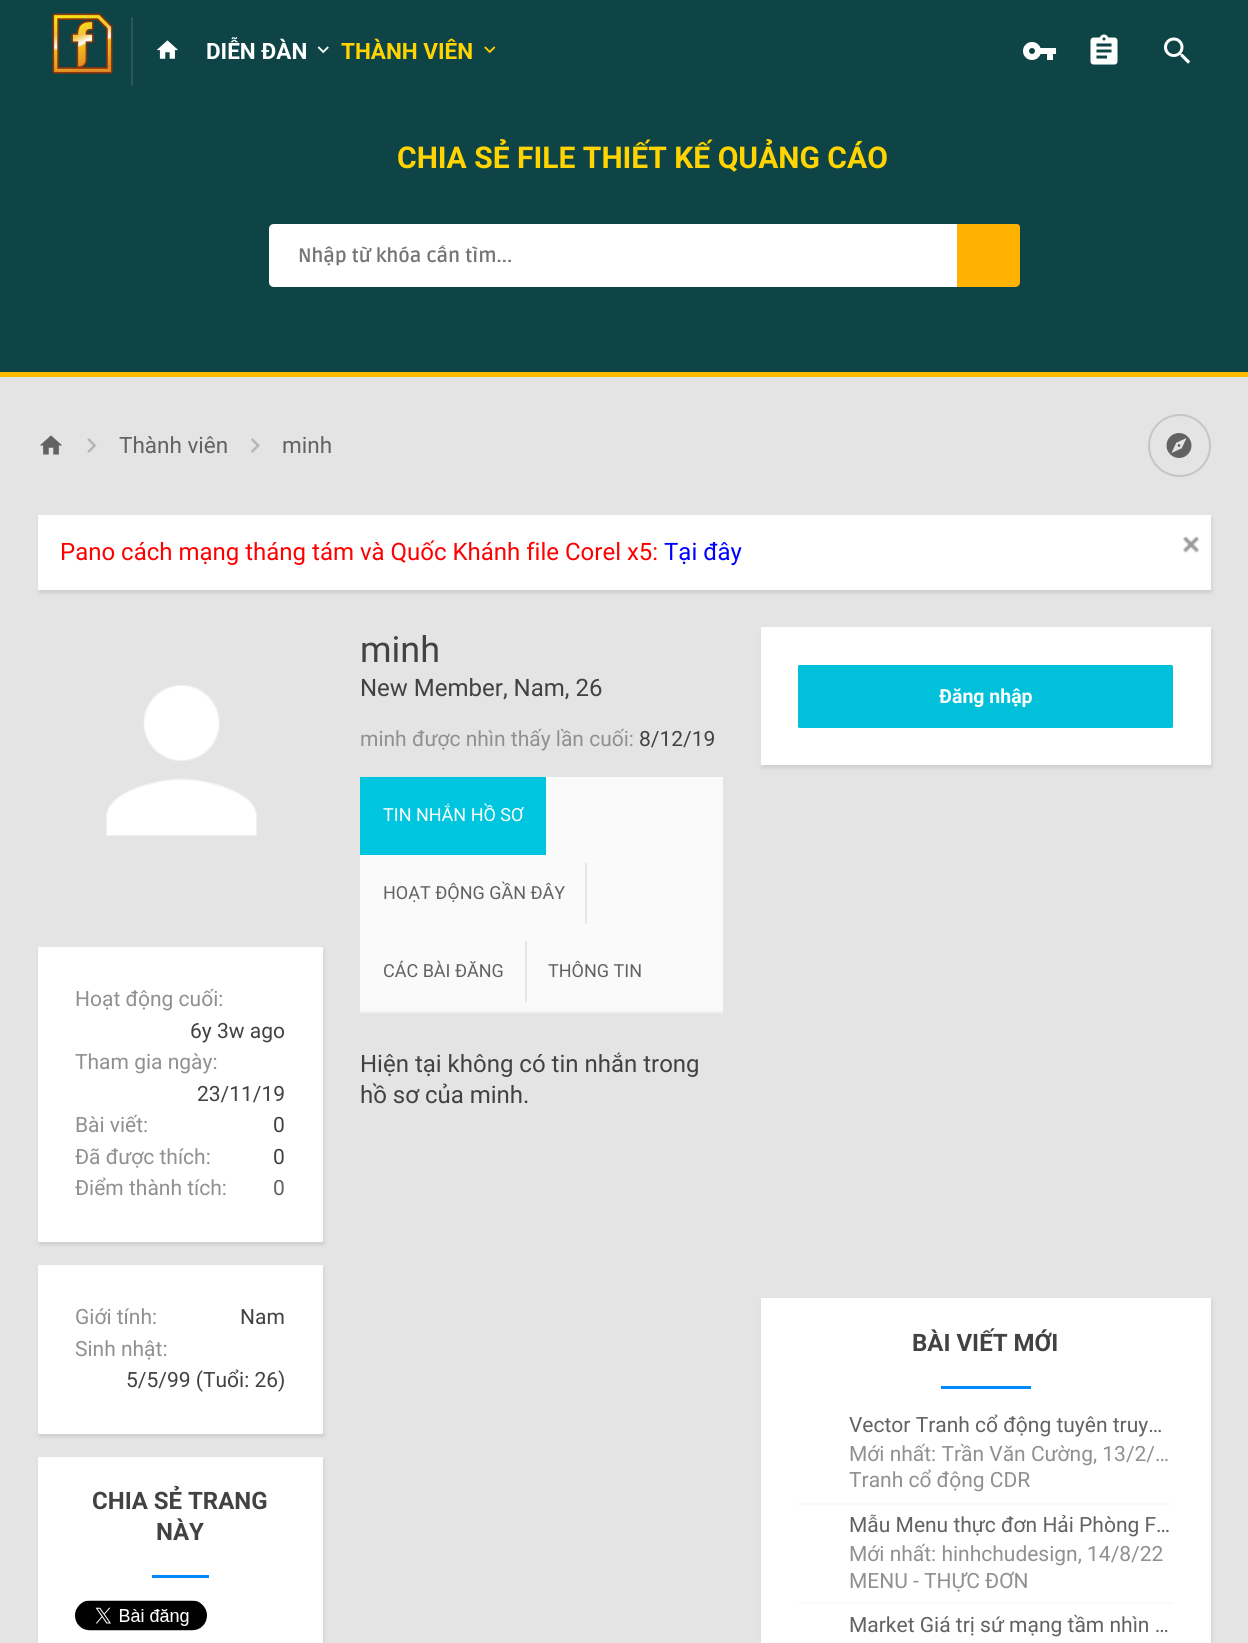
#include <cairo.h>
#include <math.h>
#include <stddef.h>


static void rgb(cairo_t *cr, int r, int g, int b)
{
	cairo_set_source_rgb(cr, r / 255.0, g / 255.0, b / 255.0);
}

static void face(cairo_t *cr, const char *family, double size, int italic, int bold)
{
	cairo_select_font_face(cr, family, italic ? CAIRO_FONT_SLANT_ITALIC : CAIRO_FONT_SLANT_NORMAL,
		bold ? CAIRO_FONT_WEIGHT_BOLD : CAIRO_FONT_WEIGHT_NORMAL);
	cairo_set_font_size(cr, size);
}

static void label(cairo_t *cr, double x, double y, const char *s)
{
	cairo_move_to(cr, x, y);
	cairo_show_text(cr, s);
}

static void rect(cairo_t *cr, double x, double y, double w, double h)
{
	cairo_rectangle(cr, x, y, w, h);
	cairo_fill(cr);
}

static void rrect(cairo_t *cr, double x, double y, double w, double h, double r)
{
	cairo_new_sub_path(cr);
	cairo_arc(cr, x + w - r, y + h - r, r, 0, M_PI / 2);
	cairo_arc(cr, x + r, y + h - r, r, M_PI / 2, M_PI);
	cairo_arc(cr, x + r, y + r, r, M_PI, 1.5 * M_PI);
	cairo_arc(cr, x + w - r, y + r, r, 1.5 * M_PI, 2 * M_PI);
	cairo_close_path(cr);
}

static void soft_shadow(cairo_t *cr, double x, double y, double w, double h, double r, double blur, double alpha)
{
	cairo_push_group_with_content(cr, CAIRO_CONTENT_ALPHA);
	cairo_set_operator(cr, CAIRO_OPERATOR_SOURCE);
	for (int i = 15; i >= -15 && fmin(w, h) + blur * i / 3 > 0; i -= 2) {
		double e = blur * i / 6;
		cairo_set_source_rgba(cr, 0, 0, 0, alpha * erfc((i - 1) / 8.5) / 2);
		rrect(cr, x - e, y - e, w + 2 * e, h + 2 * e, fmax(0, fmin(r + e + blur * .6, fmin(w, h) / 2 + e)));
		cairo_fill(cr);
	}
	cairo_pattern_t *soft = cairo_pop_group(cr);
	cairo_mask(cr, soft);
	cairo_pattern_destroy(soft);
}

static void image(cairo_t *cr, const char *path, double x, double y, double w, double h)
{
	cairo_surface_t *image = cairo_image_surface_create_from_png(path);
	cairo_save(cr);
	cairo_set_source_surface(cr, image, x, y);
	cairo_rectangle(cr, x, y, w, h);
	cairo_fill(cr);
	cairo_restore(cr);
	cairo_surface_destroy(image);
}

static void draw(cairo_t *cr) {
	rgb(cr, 228, 228, 228);
	cairo_paint(cr);
	rgb(cr, 15, 68, 70);
	rect(cr, 0, 0, 1248, 372);
	rgb(cr, 39, 87, 89);
	rect(cr, 131, 17, 2, 69);
	image(cr, "image0.png", 52, 13, 61, 61);
	image(cr, "image1.png", 156, 40, 22, 19);
	face(cr, "Roboto", 22.5, 0, 1);
	rgb(cr, 255, 255, 255);
	label(cr, 206, 59, "DIỄN ĐÀN");
	image(cr, "image2.png", 317, 46, 12, 8);
	rgb(cr, 255, 212, 0);
	label(cr, 341, 59, "THÀNH VIÊN");
	image(cr, "image3.png", 484, 46, 12, 8);
	image(cr, "image4.png", 1023, 42, 34, 18);
	image(cr, "image5.png", 1090, 34, 28, 31);
	image(cr, "image6.png", 1164, 37, 27, 27);
	rgb(cr, 255, 188, 0);
	rect(cr, 0, 372, 1248, 5);
	face(cr, "Roboto", 30, 0, 1);
	rgb(cr, 255, 212, 0);
	label(cr, 397, 168, "CHIA SẺ FILE THIẾT KẾ QUẢNG CÁO");
	rgb(cr, 255, 255, 255);
	cairo_new_path(cr);
	cairo_move_to(cr, 274, 224);
	cairo_line_to(cr, 1016, 224);
	cairo_line_to(cr, 1016, 287);
	cairo_line_to(cr, 274, 287);
	cairo_curve_to(cr, 271, 287, 269, 285, 269, 282);
	cairo_line_to(cr, 269, 229);
	cairo_curve_to(cr, 269, 226, 271, 224, 274, 224);
	cairo_close_path(cr);
	cairo_fill(cr);
	cairo_save(cr);
	cairo_rectangle(cr, 299, 245, 687, 24);
	cairo_clip(cr);
	face(cr, "Ruda", 19.5, 0, 1);
	rgb(cr, 117, 117, 117);
	label(cr, 298, 262, "Nhập từ khóa cần tìm...");
	cairo_restore(cr);
	rgb(cr, 255, 178, 2);
	cairo_new_path(cr);
	cairo_move_to(cr, 957, 224);
	cairo_line_to(cr, 1017, 224);
	cairo_curve_to(cr, 1018.5, 224, 1020, 225.5, 1020, 227);
	cairo_line_to(cr, 1020, 282);
	cairo_curve_to(cr, 1020, 285, 1018, 287, 1015, 287);
	cairo_line_to(cr, 957, 287);
	cairo_close_path(cr);
	cairo_fill(cr);
	image(cr, "image7.png", 39, 435, 24, 20);
	image(cr, "image8.png", 87, 438, 10, 15);
	face(cr, "Roboto", 22.5, 0, 0);
	rgb(cr, 98, 98, 98);
	label(cr, 119, 453, "Thành viên");
	image(cr, "image9.png", 251, 438, 9, 15);
	label(cr, 282, 453, "minh");
	rgb(cr, 197, 197, 197);
	cairo_set_fill_rule(cr, CAIRO_FILL_RULE_EVEN_ODD);
	cairo_new_path(cr);
	cairo_move_to(cr, 1180, 414);
	cairo_curve_to(cr, 1197, 414, 1211, 428, 1211, 446);
	cairo_curve_to(cr, 1211, 463, 1197, 477, 1180, 477);
	cairo_curve_to(cr, 1162, 477, 1148, 463, 1148, 446);
	cairo_curve_to(cr, 1148, 428, 1162, 414, 1180, 414);
	cairo_close_path(cr);
	cairo_move_to(cr, 1180, 416);
	cairo_curve_to(cr, 1163, 416, 1150, 429, 1150, 446);
	cairo_curve_to(cr, 1150, 462, 1163, 475, 1180, 475);
	cairo_curve_to(cr, 1196, 475, 1209, 462, 1209, 446);
	cairo_curve_to(cr, 1209, 429, 1196, 416, 1180, 416);
	cairo_close_path(cr);
	cairo_fill(cr);
	image(cr, "image10.png", 1166, 433, 26, 25);
	rgb(cr, 0, 0, 0);
	soft_shadow(cr, 39, 518, 1173, 75, 0, 2, 0.1);
	rgb(cr, 255, 255, 255);
	rect(cr, 38, 515, 1173, 75);
	face(cr, "Roboto", 24, 0, 0);
	rgb(cr, 255, 0, 0);
	label(cr, 60, 560, "Pano cách mạng tháng tám và Quốc Khánh file Corel x5:");
	rgb(cr, 0, 0, 255);
	label(cr, 664, 560, "Tại đây");
	image(cr, "image11.png", 1183, 536, 16, 17);
	face(cr, "Roboto", 36, 0, 0);
	rgb(cr, 66, 66, 66);
	label(cr, 360, 662, "minh");
	face(cr, "Roboto", 24, 0, 0);
	label(cr, 360, 696, "New Member, Nam, 26");
	face(cr, "Roboto", 21, 0, 0);
	rgb(cr, 144, 144, 144);
	label(cr, 360, 746, "minh được nhìn thấy lần cuối:");
	rgb(cr, 66, 66, 66);
	label(cr, 639, 746, "8/12/19");
	rgb(cr, 250, 250, 250);
	rect(cr, 360, 777, 363, 234);
	rgb(cr, 242, 242, 242);
	rect(cr, 360, 1011, 363, 2);
	rgb(cr, 0, 197, 222);
	rect(cr, 360, 777, 186, 78);
	face(cr, "Roboto", 18, 0, 0);
	rgb(cr, 255, 255, 255);
	label(cr, 383, 821, "TIN NHẮN HỒ SƠ");
	rgb(cr, 98, 98, 98);
	label(cr, 383, 899, "HOẠT ĐỘNG GẦN ĐÂY");
	rgb(cr, 231, 231, 231);
	rect(cr, 585, 863, 2, 61);
	rgb(cr, 98, 98, 98);
	label(cr, 383, 977, "CÁC BÀI ĐĂNG");
	rgb(cr, 231, 231, 231);
	rect(cr, 525, 941, 2, 61);
	rgb(cr, 98, 98, 98);
	label(cr, 548, 977, "THÔNG TIN");
	face(cr, "Roboto", 24, 0, 0);
	rgb(cr, 66, 66, 66);
	label(cr, 360, 1072, "Hiện tại không có tin nhắn trong");
	label(cr, 360, 1103, "hồ sơ của minh.");
	image(cr, "image12.png", 106, 685, 151, 151);
	rgb(cr, 0, 0, 0);
	soft_shadow(cr, 39, 950, 285, 295, 1.5, 2, 0.1);
	rgb(cr, 255, 255, 255);
	rrect(cr, 38, 947, 285, 295, 1.5);
	cairo_fill(cr);
	face(cr, "Roboto", 21, 0, 0);
	rgb(cr, 144, 144, 144);
	label(cr, 75, 1006, "Hoạt động cuối:");
	rgb(cr, 66, 66, 66);
	label(cr, 190, 1038, "6y 3w ago");
	rgb(cr, 144, 144, 144);
	label(cr, 75, 1069, "Tham gia ngày:");
	rgb(cr, 66, 66, 66);
	label(cr, 197, 1101, "23/11/19");
	rgb(cr, 144, 144, 144);
	label(cr, 75, 1132, "Bài viết:");
	rgb(cr, 66, 66, 66);
	label(cr, 273, 1132, "0");
	rgb(cr, 144, 144, 144);
	label(cr, 75, 1164, "Đã được thích:");
	rgb(cr, 66, 66, 66);
	label(cr, 273, 1164, "0");
	rgb(cr, 144, 144, 144);
	label(cr, 75, 1195, "Điểm thành tích:");
	rgb(cr, 98, 98, 98);
	label(cr, 273, 1195, "0");
	rgb(cr, 0, 0, 0);
	soft_shadow(cr, 39, 1268, 285, 169, 1.5, 2, 0.1);
	rgb(cr, 255, 255, 255);
	rrect(cr, 38, 1265, 285, 169, 1.5);
	cairo_fill(cr);
	rgb(cr, 144, 144, 144);
	label(cr, 75, 1324, "Giới tính:");
	rgb(cr, 66, 66, 66);
	label(cr, 240, 1324, "Nam");
	rgb(cr, 144, 144, 144);
	label(cr, 75, 1356, "Sinh nhật:");
	rgb(cr, 66, 66, 66);
	label(cr, 126, 1387, "5/5/99 (Tuổi: 26)");
	rgb(cr, 0, 0, 0);
	soft_shadow(cr, 39, 1460, 285, 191, 1.5, 2, 0.1);
	rgb(cr, 255, 255, 255);
	rrect(cr, 38, 1457, 285, 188, 1.5);
	cairo_fill(cr);
	face(cr, "Roboto", 24, 0, 1);
	rgb(cr, 66, 66, 66);
	label(cr, 92, 1509, "CHIA SẺ TRANG");
	label(cr, 156, 1540, "NÀY");
	rgb(cr, 0, 136, 255);
	rect(cr, 152, 1575, 57, 3);
	image(cr, "image13.png", 75, 1600, 132, 31);
	rgb(cr, 0, 0, 0);
	soft_shadow(cr, 762, 630, 450, 138, 0, 2, 0.1);
	rgb(cr, 255, 255, 255);
	rect(cr, 761, 627, 450, 138);
	rgb(cr, 1, 192, 217);
	rrect(cr, 798, 665, 375, 63, 1.5);
	cairo_fill(cr);
	face(cr, "Roboto", 19.5, 0, 1);
	rgb(cr, 255, 255, 255);
	label(cr, 939, 703, "Đăng nhập");
	rgb(cr, 0, 0, 0);
	soft_shadow(cr, 762, 1301, 450, 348, 0, 2, 0.1);
	rgb(cr, 255, 255, 255);
	rect(cr, 761, 1298, 450, 345);
	face(cr, "Roboto", 24, 0, 1);
	rgb(cr, 66, 66, 66);
	label(cr, 912, 1351, "BÀI VIẾT MỚI");
	rgb(cr, 0, 136, 255);
	rect(cr, 941, 1386, 90, 3);
	face(cr, "Roboto", 21, 0, 0);
	rgb(cr, 98, 98, 98);
	label(cr, 849, 1432, "Vector Tranh cổ động tuyên truy…");
	rgb(cr, 144, 144, 144);
	label(cr, 849, 1461, "Mới nhất: Trần Văn Cường, 13/2/…");
	label(cr, 849, 1487, "Tranh cổ động CDR");
	rgb(cr, 250, 250, 250);
	rect(cr, 798, 1503, 375, 2);
	rgb(cr, 98, 98, 98);
	label(cr, 849, 1532, "Mẫu Menu thực đơn Hải Phòng F…");
	rgb(cr, 144, 144, 144);
	label(cr, 849, 1561, "Mới nhất: hinhchudesign, 14/8/22");
	label(cr, 849, 1588, "MENU - THỰC ĐƠN");
	rgb(cr, 250, 250, 250);
	rect(cr, 798, 1602, 375, 2);
	rgb(cr, 98, 98, 98);
	label(cr, 849, 1632, "Market Giá trị sứ mạng tầm nhìn …");
}

int main(void) {
	cairo_surface_t *surface = cairo_image_surface_create(CAIRO_FORMAT_RGB24, 1248, 1643);
	cairo_t *cr = cairo_create(surface);
	cairo_font_options_t *options = cairo_font_options_create();
	cairo_font_options_set_hint_metrics(options, CAIRO_HINT_METRICS_OFF);
	cairo_font_options_set_hint_style(options, CAIRO_HINT_STYLE_NONE);
	cairo_set_font_options(cr, options);
	cairo_set_miter_limit(cr, 4);
	draw(cr);
	cairo_surface_write_to_png(surface, "render.png");
	cairo_font_options_destroy(options);
	cairo_destroy(cr);
	cairo_surface_destroy(surface);
	return 0;
}
